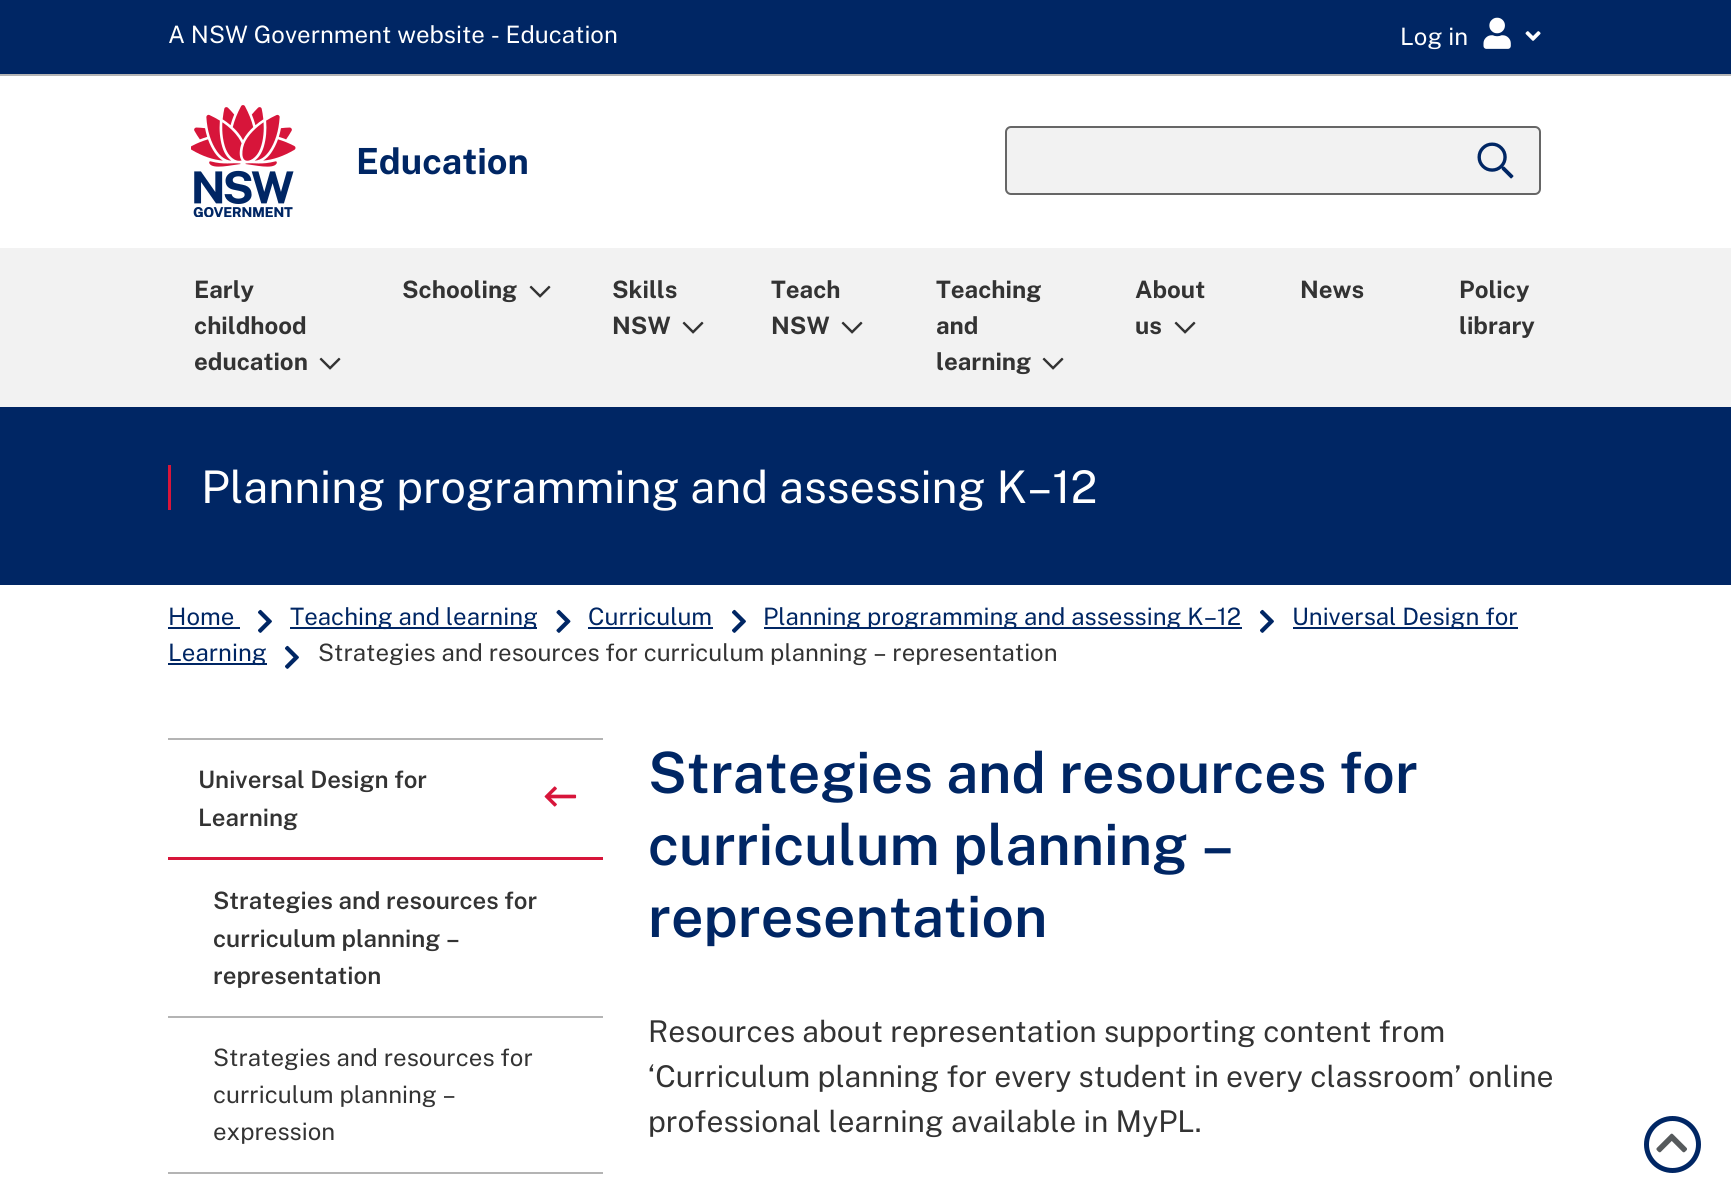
#include <cairo.h>
#include <math.h>
#include <stddef.h>


static void rgb(cairo_t *cr, int r, int g, int b)
{
	cairo_set_source_rgb(cr, r / 255.0, g / 255.0, b / 255.0);
}

static void face(cairo_t *cr, const char *family, double size, int italic, int bold)
{
	cairo_select_font_face(cr, family, italic ? CAIRO_FONT_SLANT_ITALIC : CAIRO_FONT_SLANT_NORMAL,
		bold ? CAIRO_FONT_WEIGHT_BOLD : CAIRO_FONT_WEIGHT_NORMAL);
	cairo_set_font_size(cr, size);
}

static void label(cairo_t *cr, double x, double y, const char *s)
{
	cairo_move_to(cr, x, y);
	cairo_show_text(cr, s);
}

static void rect(cairo_t *cr, double x, double y, double w, double h)
{
	cairo_rectangle(cr, x, y, w, h);
	cairo_fill(cr);
}

static void rrect(cairo_t *cr, double x, double y, double w, double h, double r)
{
	cairo_new_sub_path(cr);
	cairo_arc(cr, x + w - r, y + h - r, r, 0, M_PI / 2);
	cairo_arc(cr, x + r, y + h - r, r, M_PI / 2, M_PI);
	cairo_arc(cr, x + r, y + r, r, M_PI, 1.5 * M_PI);
	cairo_arc(cr, x + w - r, y + r, r, 1.5 * M_PI, 2 * M_PI);
	cairo_close_path(cr);
}

static void image(cairo_t *cr, const char *path, double x, double y, double w, double h)
{
	cairo_surface_t *image = cairo_image_surface_create_from_png(path);
	cairo_save(cr);
	cairo_set_source_surface(cr, image, x, y);
	cairo_rectangle(cr, x, y, w, h);
	cairo_fill(cr);
	cairo_restore(cr);
	cairo_surface_destroy(image);
}

static void draw(cairo_t *cr) {
	rgb(cr, 255, 255, 255);
	cairo_paint(cr);
	rgb(cr, 0, 38, 100);
	rect(cr, 0, 0, 1731, 74);
	rgb(cr, 180, 180, 180);
	rect(cr, 0, 74, 1731, 2);
	face(cr, "Public Sans Thin", 24, 0, 0);
	rgb(cr, 255, 255, 255);
	label(cr, 168, 43, "A NSW Government website - Education");
	label(cr, 1400, 45, "Log in");
	image(cr, "image0.png", 1483, 17, 28, 32);
	image(cr, "image1.png", 1525, 31, 16, 10);
	image(cr, "image2.png", 191, 105, 105, 112);
	face(cr, "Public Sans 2 Thin", 36, 0, 0);
	rgb(cr, 0, 38, 100);
	label(cr, 356, 174, "Education");
	rgb(cr, 242, 242, 242);
	rrect(cr, 1006, 127, 534, 67, 5);
	cairo_fill_preserve(cr);
	rgb(cr, 102, 102, 102);
	cairo_stroke(cr);
	image(cr, "image3.png", 1477, 142, 37, 37);
	rgb(cr, 242, 242, 242);
	rect(cr, 0, 248, 1731, 159);
	face(cr, "Public Sans 2 Thin", 24, 0, 0);
	rgb(cr, 51, 51, 51);
	label(cr, 194, 298, "Early");
	label(cr, 194, 334, "childhood");
	label(cr, 194, 370, "education");
	image(cr, "image4.png", 319, 357, 22, 13);
	label(cr, 402, 298, "Schooling");
	image(cr, "image4.png", 529, 285, 22, 13);
	label(cr, 612, 298, "Skills");
	label(cr, 612, 334, "NSW");
	image(cr, "image4.png", 682, 321, 22, 13);
	label(cr, 771, 298, "Teach");
	label(cr, 771, 334, "NSW");
	image(cr, "image4.png", 841, 321, 22, 13);
	label(cr, 936, 298, "Teaching");
	label(cr, 936, 334, "and");
	label(cr, 936, 370, "learning");
	image(cr, "image4.png", 1042, 357, 22, 13);
	label(cr, 1135, 298, "About");
	label(cr, 1135, 334, "us");
	image(cr, "image4.png", 1174, 321, 22, 13);
	label(cr, 1300, 298, "News");
	label(cr, 1459, 298, "Policy");
	label(cr, 1459, 334, "library");
	rgb(cr, 0, 38, 100);
	rect(cr, 0, 407, 1731, 178);
	rgb(cr, 215, 21, 58);
	rect(cr, 168, 465, 3, 45);
	face(cr, "Public Sans Thin", 45, 0, 0);
	rgb(cr, 255, 255, 255);
	label(cr, 201, 503, "Planning programming and assessing K–12");
	face(cr, "Public Sans Thin", 24, 0, 0);
	rgb(cr, 0, 38, 100);
	label(cr, 168, 625, "Home");
	rect(cr, 168, 627, 72, 2);
	image(cr, "image5.png", 1260, 609, 14, 24);
	rect(cr, 1293, 627, 225, 2);
	label(cr, 1292, 625, "Universal Design for");
	rect(cr, 168, 663, 99, 2);
	label(cr, 168, 661, "Learning");
	image(cr, "image5.png", 258, 609, 14, 24);
	rect(cr, 290, 627, 247, 2);
	label(cr, 290, 625, "Teaching and learning");
	image(cr, "image6.png", 556, 609, 15, 24);
	label(cr, 588, 625, "Curriculum");
	rect(cr, 588, 627, 125, 2);
	image(cr, "image5.png", 732, 609, 14, 24);
	rect(cr, 764, 627, 478, 2);
	label(cr, 763, 625, "Planning programming and assessing K–12");
	image(cr, "image5.png", 285, 645, 14, 24);
	rgb(cr, 51, 51, 51);
	label(cr, 318, 661, "Strategies and resources for curriculum planning – representation");
	rgb(cr, 215, 21, 58);
	rect(cr, 168, 857, 435, 3);
	rgb(cr, 180, 180, 180);
	rect(cr, 168, 738, 435, 2);
	face(cr, "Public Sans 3 Thin", 24, 0, 0);
	rgb(cr, 51, 51, 51);
	label(cr, 198, 788, "Universal Design for");
	image(cr, "image7.png", 544, 786, 33, 21);
	label(cr, 198, 826, "Learning");
	rgb(cr, 180, 180, 180);
	rect(cr, 168, 1016, 435, 2);
	rgb(cr, 51, 51, 51);
	label(cr, 213, 909, "Strategies and resources for");
	label(cr, 213, 947, "curriculum planning –");
	label(cr, 213, 984, "representation");
	rgb(cr, 180, 180, 180);
	rect(cr, 168, 1172, 435, 2);
	face(cr, "Public Sans Thin", 24, 0, 0);
	rgb(cr, 51, 51, 51);
	label(cr, 213, 1066, "Strategies and resources for");
	label(cr, 213, 1103, "curriculum planning –");
	label(cr, 213, 1140, "expression");
	face(cr, "Public Sans 3 Thin", 57, 0, 0);
	rgb(cr, 0, 38, 100);
	label(cr, 648, 793, "Strategies and resources for");
	label(cr, 648, 865, "curriculum planning –");
	label(cr, 648, 937, "representation");
	face(cr, "Public Sans Thin", 30, 0, 0);
	rgb(cr, 51, 51, 51);
	label(cr, 648, 1042, "Resources about representation supporting content from");
	label(cr, 648, 1087, "‘Curriculum planning for every student in every classroom’ online");
	label(cr, 648, 1132, "professional learning available in MyPL.");
	cairo_new_path(cr);
	cairo_arc(cr, 1672.5, 1144.5, 26, 0, 2 * M_PI);
	rgb(cr, 0, 38, 100);
	cairo_set_line_width(cr, 5);
	cairo_stroke(cr);
	image(cr, "image8.png", 1656, 1133, 31, 20);
}

int main(void) {
	cairo_surface_t *surface = cairo_image_surface_create(CAIRO_FORMAT_RGB24, 1731, 1180);
	cairo_t *cr = cairo_create(surface);
	cairo_font_options_t *options = cairo_font_options_create();
	cairo_font_options_set_hint_metrics(options, CAIRO_HINT_METRICS_OFF);
	cairo_font_options_set_hint_style(options, CAIRO_HINT_STYLE_NONE);
	cairo_set_font_options(cr, options);
	cairo_set_miter_limit(cr, 4);
	draw(cr);
	cairo_surface_write_to_png(surface, "render.png");
	cairo_font_options_destroy(options);
	cairo_destroy(cr);
	cairo_surface_destroy(surface);
	return 0;
}
